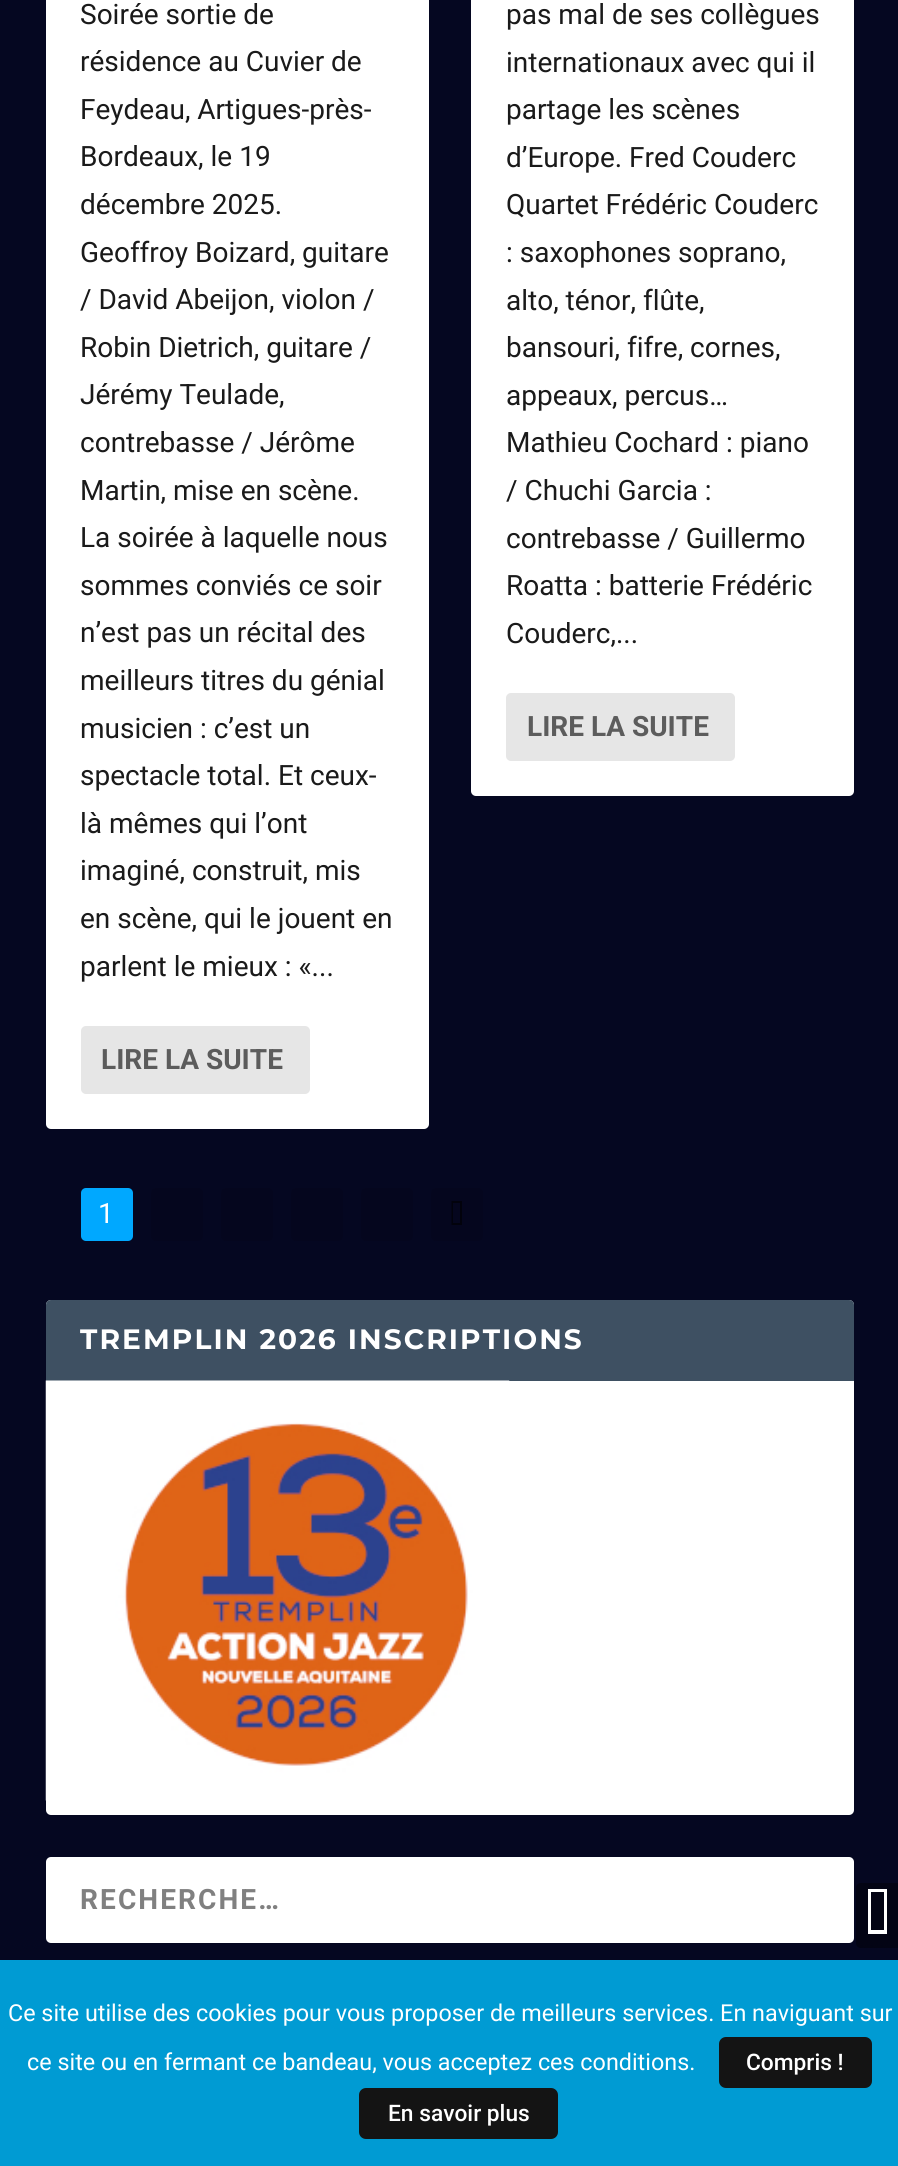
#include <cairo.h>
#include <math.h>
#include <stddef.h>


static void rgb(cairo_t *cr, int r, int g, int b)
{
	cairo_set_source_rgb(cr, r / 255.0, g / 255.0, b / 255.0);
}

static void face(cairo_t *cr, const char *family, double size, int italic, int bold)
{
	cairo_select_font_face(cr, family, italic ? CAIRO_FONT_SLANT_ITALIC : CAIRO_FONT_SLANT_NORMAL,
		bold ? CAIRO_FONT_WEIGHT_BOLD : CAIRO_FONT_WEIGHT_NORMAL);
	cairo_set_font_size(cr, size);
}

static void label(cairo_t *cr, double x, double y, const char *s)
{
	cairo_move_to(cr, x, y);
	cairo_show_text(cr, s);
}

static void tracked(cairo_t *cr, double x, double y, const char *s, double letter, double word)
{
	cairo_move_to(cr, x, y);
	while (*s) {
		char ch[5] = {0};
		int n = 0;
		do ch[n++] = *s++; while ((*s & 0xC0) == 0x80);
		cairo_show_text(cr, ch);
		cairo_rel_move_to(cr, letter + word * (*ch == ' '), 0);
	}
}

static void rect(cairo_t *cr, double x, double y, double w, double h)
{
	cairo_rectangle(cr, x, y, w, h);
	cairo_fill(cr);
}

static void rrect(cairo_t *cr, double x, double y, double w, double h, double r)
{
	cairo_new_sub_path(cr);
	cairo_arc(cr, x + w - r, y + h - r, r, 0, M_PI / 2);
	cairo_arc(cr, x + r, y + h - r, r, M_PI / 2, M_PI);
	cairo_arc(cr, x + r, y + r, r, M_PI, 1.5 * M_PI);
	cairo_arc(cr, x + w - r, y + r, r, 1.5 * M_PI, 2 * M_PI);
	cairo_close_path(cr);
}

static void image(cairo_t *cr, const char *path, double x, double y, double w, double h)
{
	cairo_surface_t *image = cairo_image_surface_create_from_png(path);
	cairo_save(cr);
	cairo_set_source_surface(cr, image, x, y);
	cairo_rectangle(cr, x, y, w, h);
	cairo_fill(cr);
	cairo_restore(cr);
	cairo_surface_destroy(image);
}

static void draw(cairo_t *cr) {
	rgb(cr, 5, 7, 33);
	cairo_paint(cr);
	rgb(cr, 255, 255, 255);
	rrect(cr, 46, -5, 383, 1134, 5);
	cairo_fill(cr);
	face(cr, "Roboto", 28, 0, 0);
	rgb(cr, 26, 26, 26);
	label(cr, 80, 24, "Soirée sortie de");
	label(cr, 80, 71, "résidence au Cuvier de");
	label(cr, 80, 119, "Feydeau, Artigues-près-");
	label(cr, 80, 166, "Bordeaux, le 19");
	label(cr, 80, 214, "décembre 2025.");
	label(cr, 80, 262, "Geoffroy Boizard, guitare");
	label(cr, 80, 309, "/ David Abeijon, violon /");
	label(cr, 80, 357, "Robin Dietrich, guitare /");
	label(cr, 80, 404, "Jérémy Teulade,");
	label(cr, 80, 452, "contrebasse / Jérôme");
	label(cr, 80, 500, "Martin, mise en scène.");
	label(cr, 80, 547, "La soirée à laquelle nous");
	label(cr, 80, 595, "sommes conviés ce soir");
	label(cr, 80, 642, "n’est pas un récital des");
	label(cr, 80, 690, "meilleurs titres du génial");
	label(cr, 80, 738, "musicien : c’est un");
	label(cr, 80, 785, "spectacle total. Et ceux-");
	label(cr, 80, 833, "là mêmes qui l’ont");
	label(cr, 80, 880, "imaginé, construit, mis");
	label(cr, 80, 928, "en scène, qui le jouent en");
	label(cr, 80, 976, "parlent le mieux : «...");
	rgb(cr, 230, 230, 230);
	rrect(cr, 81, 1026, 229, 68, 5);
	cairo_fill(cr);
	face(cr, "Roboto", 28, 0, 1);
	rgb(cr, 92, 92, 92);
	label(cr, 101, 1069, "LIRE LA SUITE");
	rgb(cr, 255, 255, 255);
	rrect(cr, 471, -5, 383, 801, 5);
	cairo_fill(cr);
	face(cr, "Roboto", 28, 0, 0);
	rgb(cr, 26, 26, 26);
	label(cr, 506, 24, "pas mal de ses collègues");
	label(cr, 506, 72, "internationaux avec qui il");
	label(cr, 506, 119, "partage les scènes");
	label(cr, 506, 167, "d’Europe. Fred Couderc");
	label(cr, 506, 214, "Quartet Frédéric Couderc");
	label(cr, 506, 262, ": saxophones soprano,");
	label(cr, 506, 310, "alto, ténor, flûte,");
	label(cr, 506, 357, "bansouri, fifre, cornes,");
	label(cr, 506, 405, "appeaux, percus…");
	label(cr, 506, 452, "Mathieu Cochard : piano");
	label(cr, 506, 500, "/ Chuchi Garcia :");
	label(cr, 506, 548, "contrebasse / Guillermo");
	label(cr, 506, 595, "Roatta : batterie Frédéric");
	label(cr, 506, 643, "Couderc,...");
	rgb(cr, 230, 230, 230);
	rrect(cr, 506, 693, 229, 68, 5);
	cairo_fill(cr);
	face(cr, "Roboto", 28, 0, 1);
	rgb(cr, 92, 92, 92);
	label(cr, 527, 736, "LIRE LA SUITE");
	rgb(cr, 0, 168, 255);
	rrect(cr, 81, 1188, 52, 53, 5);
	cairo_fill(cr);
	face(cr, "Roboto", 28, 0, 0);
	rgb(cr, 255, 255, 255);
	label(cr, 98, 1223, "1");
	rgb(cr, 5, 6, 30);
	rrect(cr, 151, 1188, 52, 53, 5);
	cairo_fill(cr);
	rrect(cr, 221, 1188, 52, 53, 5);
	cairo_fill(cr);
	rrect(cr, 291, 1188, 52, 53, 5);
	cairo_fill(cr);
	rrect(cr, 361, 1188, 52, 53, 5);
	cairo_fill(cr);
	rrect(cr, 431, 1188, 52, 53, 5);
	cairo_fill(cr);
	rgb(cr, 2, 2, 12);
	cairo_new_path(cr);
	cairo_move_to(cr, 453, 1223);
	cairo_line_to(cr, 460, 1223);
	cairo_line_to(cr, 460, 1203);
	cairo_line_to(cr, 453, 1203);
	cairo_close_path(cr);
	cairo_move_to(cr, 451.5, 1225);
	cairo_line_to(cr, 451.5, 1201);
	cairo_line_to(cr, 462, 1201);
	cairo_line_to(cr, 462, 1225);
	cairo_close_path(cr);
	cairo_fill(cr);
	rgb(cr, 255, 255, 255);
	rrect(cr, 46, 1300, 808, 515, 5);
	cairo_fill(cr);
	rgb(cr, 62, 80, 98);
	cairo_new_path(cr);
	cairo_move_to(cr, 51, 1300);
	cairo_line_to(cr, 849, 1300);
	cairo_curve_to(cr, 852, 1300, 854, 1302, 854, 1305);
	cairo_line_to(cr, 854, 1381);
	cairo_line_to(cr, 46, 1381);
	cairo_line_to(cr, 46, 1305);
	cairo_curve_to(cr, 46, 1302, 48, 1300, 51, 1300);
	cairo_close_path(cr);
	cairo_fill(cr);
	face(cr, "Montserrat", 28, 0, 1);
	rgb(cr, 255, 255, 255);
	tracked(cr, 80, 1349, "TREMPLIN 2026 INSCRIPTIONS", 2.1, 0);
	image(cr, "image0.png", 45, 1380, 465, 421);
	rrect(cr, 46, 1857, 808, 86, 5);
	cairo_fill(cr);
	face(cr, "Roboto", 28, 0, 1);
	rgb(cr, 128, 128, 128);
	tracked(cr, 80, 1909, "RECHERCHE…", 2.1, 0);
	rgb(cr, 3, 4, 20);
	cairo_new_path(cr);
	cairo_move_to(cr, 861, 1883);
	cairo_line_to(cr, 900, 1883);
	cairo_line_to(cr, 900, 1948);
	cairo_line_to(cr, 861, 1948);
	cairo_curve_to(cr, 858, 1948, 856, 1946, 856, 1943);
	cairo_line_to(cr, 856, 1888);
	cairo_curve_to(cr, 856, 1885, 858, 1883, 861, 1883);
	cairo_close_path(cr);
	cairo_fill(cr);
	rgb(cr, 255, 255, 255);
	cairo_new_path(cr);
	cairo_move_to(cr, 871, 1930);
	cairo_line_to(cr, 884, 1930);
	cairo_line_to(cr, 884, 1892);
	cairo_line_to(cr, 871, 1892);
	cairo_close_path(cr);
	cairo_move_to(cr, 868, 1934);
	cairo_line_to(cr, 868, 1889);
	cairo_line_to(cr, 887, 1889);
	cairo_line_to(cr, 887, 1934);
	cairo_close_path(cr);
	cairo_fill(cr);
	rgb(cr, 0, 155, 211);
	rect(cr, 0, 1960, 898, 206);
	face(cr, "Roboto", 23.35, 0, 0);
	rgb(cr, 255, 255, 255);
	label(cr, 8, 2021, "Ce site utilise des cookies pour vous proposer de meilleurs services. En naviguant sur");
	label(cr, 27, 2070, "ce site ou en fermant ce bandeau, vous acceptez ces conditions.");
	rgb(cr, 20, 20, 20);
	rrect(cr, 719, 2037, 153, 51, 7);
	cairo_fill(cr);
	face(cr, "Roboto Medium", 22.75, 0, 0);
	rgb(cr, 255, 255, 255);
	label(cr, 746, 2070, "Compris !");
	rgb(cr, 20, 20, 20);
	rrect(cr, 359, 2088, 199, 51, 7);
	cairo_fill(cr);
	rgb(cr, 255, 255, 255);
	label(cr, 388, 2121, "En savoir plus");
}

int main(void) {
	cairo_surface_t *surface = cairo_image_surface_create(CAIRO_FORMAT_RGB24, 898, 2166);
	cairo_t *cr = cairo_create(surface);
	cairo_font_options_t *options = cairo_font_options_create();
	cairo_font_options_set_hint_metrics(options, CAIRO_HINT_METRICS_OFF);
	cairo_font_options_set_hint_style(options, CAIRO_HINT_STYLE_NONE);
	cairo_set_font_options(cr, options);
	cairo_set_miter_limit(cr, 4);
	draw(cr);
	cairo_surface_write_to_png(surface, "render.png");
	cairo_font_options_destroy(options);
	cairo_destroy(cr);
	cairo_surface_destroy(surface);
	return 0;
}
